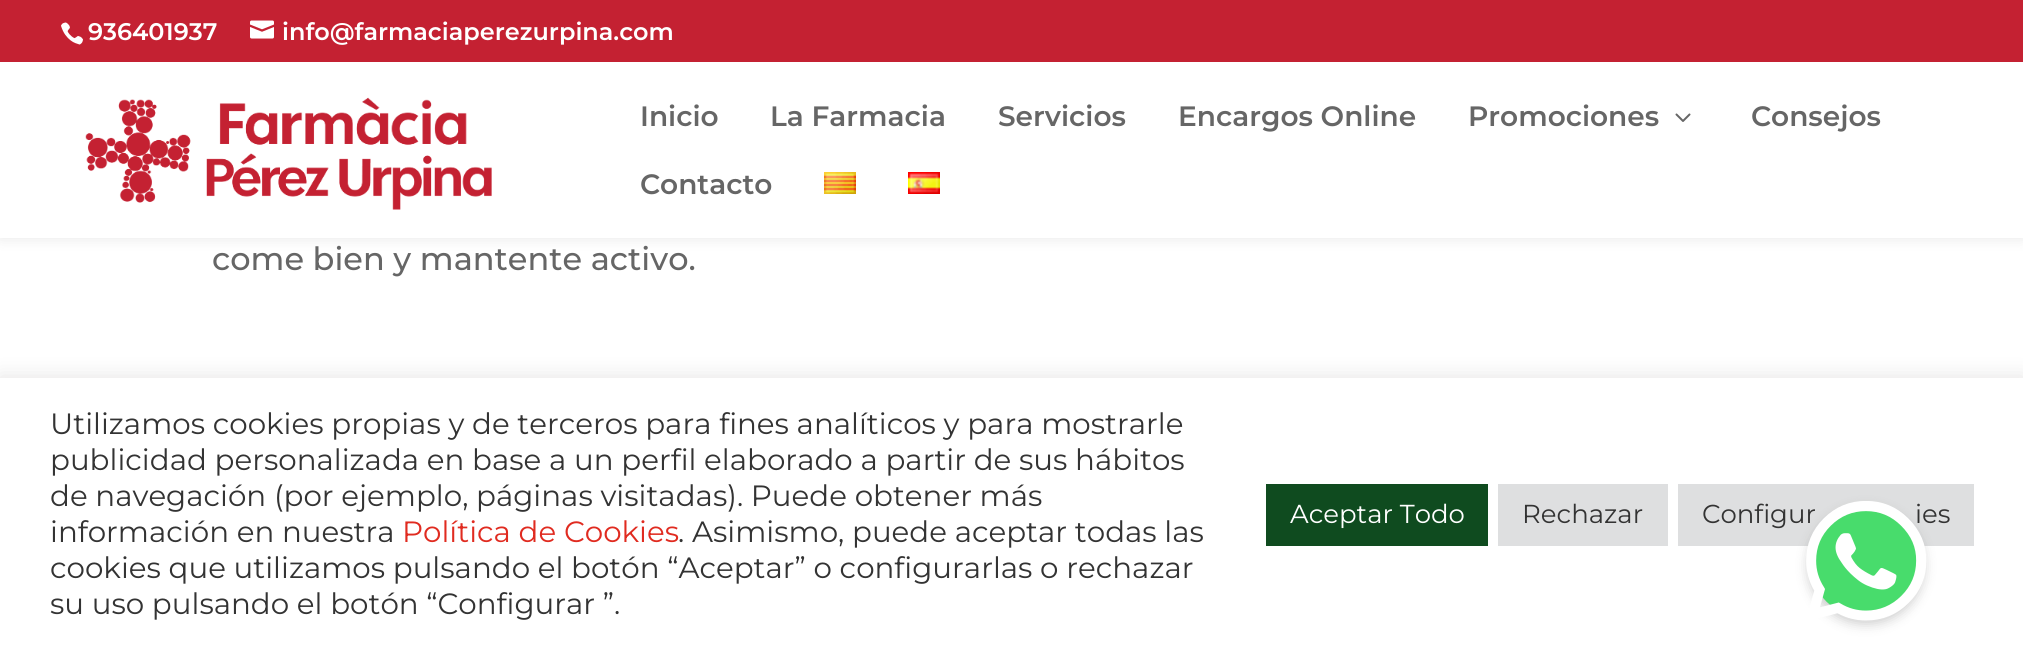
#include <cairo.h>
#include <math.h>
#include <stddef.h>


static void rgb(cairo_t *cr, int r, int g, int b)
{
	cairo_set_source_rgb(cr, r / 255.0, g / 255.0, b / 255.0);
}

static void face(cairo_t *cr, const char *family, double size, int italic, int bold)
{
	cairo_select_font_face(cr, family, italic ? CAIRO_FONT_SLANT_ITALIC : CAIRO_FONT_SLANT_NORMAL,
		bold ? CAIRO_FONT_WEIGHT_BOLD : CAIRO_FONT_WEIGHT_NORMAL);
	cairo_set_font_size(cr, size);
}

static void label(cairo_t *cr, double x, double y, const char *s)
{
	cairo_move_to(cr, x, y);
	cairo_show_text(cr, s);
}

static void rect(cairo_t *cr, double x, double y, double w, double h)
{
	cairo_rectangle(cr, x, y, w, h);
	cairo_fill(cr);
}

static void rrect(cairo_t *cr, double x, double y, double w, double h, double r)
{
	cairo_new_sub_path(cr);
	cairo_arc(cr, x + w - r, y + h - r, r, 0, M_PI / 2);
	cairo_arc(cr, x + r, y + h - r, r, M_PI / 2, M_PI);
	cairo_arc(cr, x + r, y + r, r, M_PI, 1.5 * M_PI);
	cairo_arc(cr, x + w - r, y + r, r, 1.5 * M_PI, 2 * M_PI);
	cairo_close_path(cr);
}

static void soft_shadow(cairo_t *cr, double x, double y, double w, double h, double r, double blur, double alpha)
{
	cairo_push_group_with_content(cr, CAIRO_CONTENT_ALPHA);
	cairo_set_operator(cr, CAIRO_OPERATOR_SOURCE);
	for (int i = 15; i >= -15 && fmin(w, h) + blur * i / 3 > 0; i -= 2) {
		double e = blur * i / 6;
		cairo_set_source_rgba(cr, 0, 0, 0, alpha * erfc((i - 1) / 8.5) / 2);
		rrect(cr, x - e, y - e, w + 2 * e, h + 2 * e, fmax(0, fmin(r + e + blur * .6, fmin(w, h) / 2 + e)));
		cairo_fill(cr);
	}
	cairo_pattern_t *soft = cairo_pop_group(cr);
	cairo_mask(cr, soft);
	cairo_pattern_destroy(soft);
}

static void image(cairo_t *cr, const char *path, double x, double y, double w, double h)
{
	cairo_surface_t *image = cairo_image_surface_create_from_png(path);
	cairo_save(cr);
	cairo_set_source_surface(cr, image, x, y);
	cairo_rectangle(cr, x, y, w, h);
	cairo_fill(cr);
	cairo_restore(cr);
	cairo_surface_destroy(image);
}

static void draw(cairo_t *cr) {
	rgb(cr, 255, 255, 255);
	cairo_paint(cr);
	rgb(cr, 0, 0, 0);
	soft_shadow(cr, 0, 62, 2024, 176, 0, 7, 0.1);
	rgb(cr, 196, 33, 50);
	rect(cr, 0, 0, 2023, 62);
	image(cr, "image0.png", 61, 22, 22, 23);
	face(cr, "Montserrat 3 Thin", 24, 0, 0);
	rgb(cr, 255, 255, 255);
	label(cr, 88, 40, "936401937");
	image(cr, "image1.png", 250, 20, 24, 19);
	label(cr, 282, 40, "info@farmaciaperezurpina.com");
	rect(cr, 0, 62, 2023, 176);
	image(cr, "image2.png", 85, 97, 407, 113);
	face(cr, "Montserrat 3 Thin", 28, 0, 0);
	rgb(cr, 102, 102, 102);
	label(cr, 640, 126, "Inicio");
	label(cr, 770, 126, "La Farmacia");
	label(cr, 998, 126, "Servicios");
	label(cr, 1178, 126, "Encargos Online");
	label(cr, 1468, 126, "Promociones");
	image(cr, "image3.png", 1675, 113, 16, 9);
	label(cr, 1751, 126, "Consejos");
	label(cr, 640, 194, "Contacto");
	image(cr, "image4.png", 824, 172, 32, 22);
	image(cr, "image5.png", 908, 172, 32, 22);
	face(cr, "Montserrat Thin", 32, 0, 0);
	label(cr, 212, 270, "come bien y mantente activo.");
	rgb(cr, 172, 171, 171);
	soft_shadow(cr, 0, 376, 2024, 272, 0, 10, 0.3);
	rgb(cr, 255, 255, 255);
	rect(cr, 0, 378, 2023, 271);
	face(cr, "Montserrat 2 Thin", 29.35, 0, 0);
	rgb(cr, 51, 51, 51);
	label(cr, 50, 434, "Utilizamos cookies propias y de terceros para fines analíticos y para mostrarle");
	label(cr, 50, 470, "publicidad personalizada en base a un perfil elaborado a partir de sus hábitos");
	label(cr, 50, 506, "de navegación (por ejemplo, páginas visitadas). Puede obtener más");
	label(cr, 50, 542, "información en nuestra");
	rgb(cr, 224, 43, 32);
	label(cr, 402, 542, "Política de Cookies");
	rgb(cr, 51, 51, 51);
	label(cr, 678, 542, ". Asimismo, puede aceptar todas las");
	label(cr, 50, 578, "cookies que utilizamos pulsando el botón “Aceptar” o configurarlas o rechazar");
	label(cr, 50, 614, "su uso pulsando el botón “Configurar ”.");
	rgb(cr, 15, 75, 31);
	rect(cr, 1266, 484, 222, 62);
	face(cr, "Montserrat 2 Thin", 26, 0, 0);
	rgb(cr, 255, 255, 255);
	label(cr, 1290, 523, "Aceptar Todo");
	rgb(cr, 222, 223, 224);
	rect(cr, 1498, 484, 170, 62);
	rgb(cr, 51, 51, 51);
	label(cr, 1522, 523, "Rechazar");
	rgb(cr, 222, 223, 224);
	rect(cr, 1678, 484, 296, 62);
	rgb(cr, 51, 51, 51);
	label(cr, 1702, 523, "Configur");
	label(cr, 1915, 523, "ies");
	rgb(cr, 0, 0, 0);
	soft_shadow(cr, 1808, 508, 116, 116, 58, 6, 0.2);
	rgb(cr, 72, 220, 108);
	cairo_arc(cr, 1866, 562, 56, 0, 2 * M_PI);
	cairo_fill(cr);
	image(cr, "image6.png", 1806, 501, 121, 120);
}

int main(void) {
	cairo_surface_t *surface = cairo_image_surface_create(CAIRO_FORMAT_RGB24, 2023, 649);
	cairo_t *cr = cairo_create(surface);
	cairo_font_options_t *options = cairo_font_options_create();
	cairo_font_options_set_hint_metrics(options, CAIRO_HINT_METRICS_OFF);
	cairo_font_options_set_hint_style(options, CAIRO_HINT_STYLE_NONE);
	cairo_set_font_options(cr, options);
	cairo_set_miter_limit(cr, 4);
	draw(cr);
	cairo_surface_write_to_png(surface, "render.png");
	cairo_font_options_destroy(options);
	cairo_destroy(cr);
	cairo_surface_destroy(surface);
	return 0;
}
